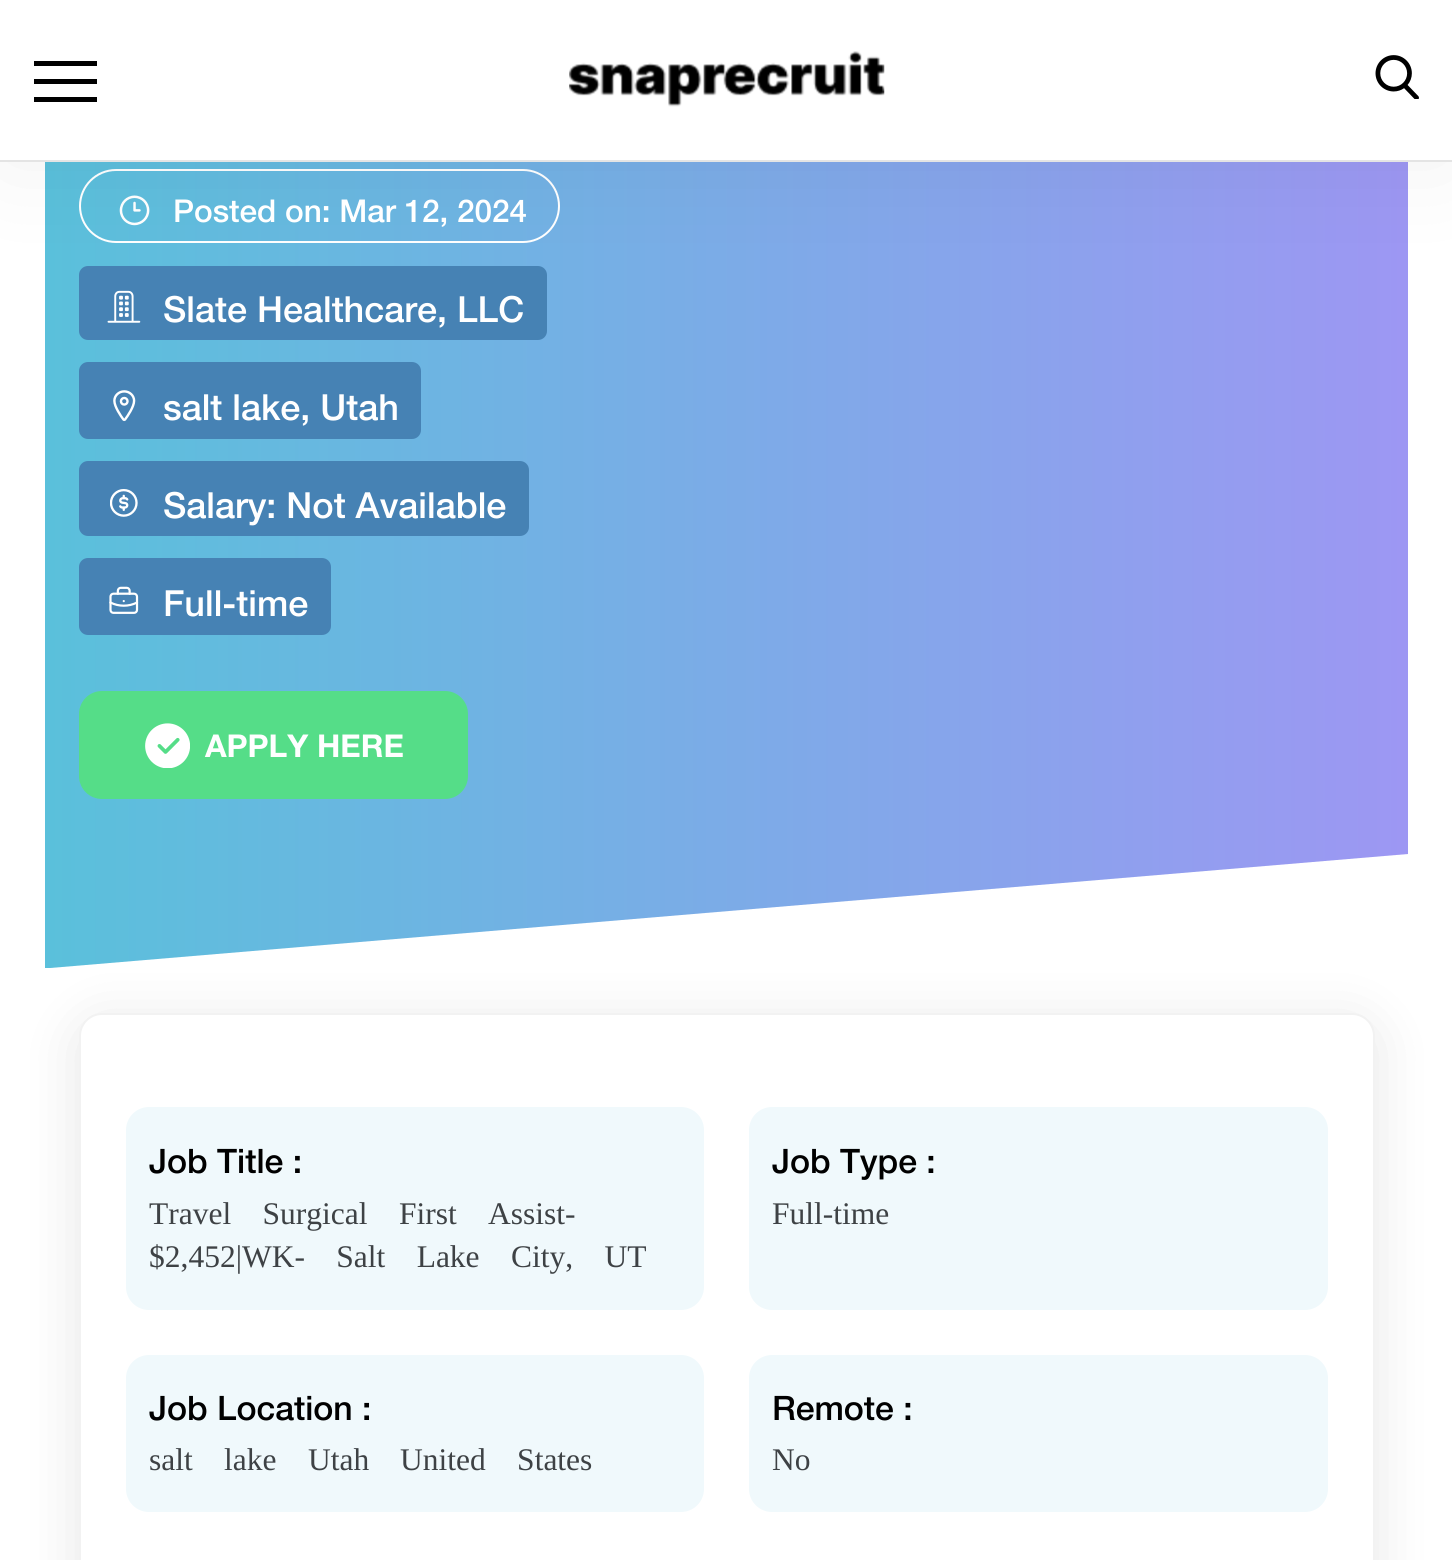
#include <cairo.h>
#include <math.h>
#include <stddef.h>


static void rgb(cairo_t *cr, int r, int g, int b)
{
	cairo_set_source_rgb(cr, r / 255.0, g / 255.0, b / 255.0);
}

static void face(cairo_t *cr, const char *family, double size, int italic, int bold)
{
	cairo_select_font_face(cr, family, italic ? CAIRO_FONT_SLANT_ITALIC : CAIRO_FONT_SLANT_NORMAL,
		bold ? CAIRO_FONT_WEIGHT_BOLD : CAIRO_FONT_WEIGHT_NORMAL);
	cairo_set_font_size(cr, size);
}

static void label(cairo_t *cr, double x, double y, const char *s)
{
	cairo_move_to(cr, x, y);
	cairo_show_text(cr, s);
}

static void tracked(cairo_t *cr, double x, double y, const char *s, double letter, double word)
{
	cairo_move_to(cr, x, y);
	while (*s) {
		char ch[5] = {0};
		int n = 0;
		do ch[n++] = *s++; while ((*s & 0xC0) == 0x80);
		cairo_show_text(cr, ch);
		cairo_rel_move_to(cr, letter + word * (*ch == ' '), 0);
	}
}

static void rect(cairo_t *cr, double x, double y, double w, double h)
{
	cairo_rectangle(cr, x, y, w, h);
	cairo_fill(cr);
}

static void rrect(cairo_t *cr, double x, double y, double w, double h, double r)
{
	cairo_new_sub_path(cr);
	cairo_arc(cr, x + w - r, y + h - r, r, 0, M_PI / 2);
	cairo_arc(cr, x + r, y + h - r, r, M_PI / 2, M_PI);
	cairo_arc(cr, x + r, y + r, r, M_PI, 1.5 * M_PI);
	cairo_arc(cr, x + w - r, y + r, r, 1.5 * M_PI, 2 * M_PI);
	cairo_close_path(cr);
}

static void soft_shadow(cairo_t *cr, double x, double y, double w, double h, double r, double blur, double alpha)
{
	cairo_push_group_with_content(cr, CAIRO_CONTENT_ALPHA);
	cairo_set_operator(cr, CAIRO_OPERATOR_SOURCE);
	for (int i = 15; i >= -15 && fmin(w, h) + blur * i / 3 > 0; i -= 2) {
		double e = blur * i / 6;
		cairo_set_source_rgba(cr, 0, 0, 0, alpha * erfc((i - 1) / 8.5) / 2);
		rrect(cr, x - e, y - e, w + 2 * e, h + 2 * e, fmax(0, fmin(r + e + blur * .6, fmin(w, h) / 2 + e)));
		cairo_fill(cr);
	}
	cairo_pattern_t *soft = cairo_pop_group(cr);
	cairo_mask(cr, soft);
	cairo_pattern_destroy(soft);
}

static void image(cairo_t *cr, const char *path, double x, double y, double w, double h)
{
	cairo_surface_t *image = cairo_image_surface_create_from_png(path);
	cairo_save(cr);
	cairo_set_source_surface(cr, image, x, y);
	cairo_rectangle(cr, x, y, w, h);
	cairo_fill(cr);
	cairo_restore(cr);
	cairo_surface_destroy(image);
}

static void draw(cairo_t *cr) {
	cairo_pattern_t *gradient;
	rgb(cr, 255, 255, 255);
	cairo_paint(cr);
	rgb(cr, 0, 0, 0);
	soft_shadow(cr, 79, 1022, 1296, 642, 23, 27, 0.1);
	gradient = cairo_pattern_create_linear(45, 398, 1409, 398);
	cairo_pattern_add_color_stop_rgba(gradient, 0, 0.353, 0.753, 0.859, 1);
	cairo_pattern_add_color_stop_rgba(gradient, 1, 0.616, 0.592, 0.953, 1);
	cairo_set_source(cr, gradient);
	cairo_pattern_destroy(gradient);
	cairo_new_path(cr);
	cairo_move_to(cr, 45, -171);
	cairo_line_to(cr, 45, 968);
	cairo_line_to(cr, 50, 968);
	cairo_line_to(cr, 1408, 854);
	cairo_line_to(cr, 1408, -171);
	cairo_close_path(cr);
	cairo_fill(cr);
	rrect(cr, 80, 170, 479, 72, 36);
	rgb(cr, 255, 255, 255);
	cairo_stroke(cr);
	image(cr, "image2.png", 119, 195, 31, 31);
	rgb(cr, 70, 130, 180);
	rrect(cr, 79, 266, 468, 74, 9);
	cairo_fill(cr);
	image(cr, "image3.png", 107, 290, 34, 33);
	rgb(cr, 0, 0, 0);
	soft_shadow(cr, 0, 0, 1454, 162, 0, 54, 0.06);
	rgb(cr, 255, 255, 255);
	rect(cr, 0, 0, 1452, 160);
	rgb(cr, 228, 228, 228);
	rect(cr, 0, 160, 1452, 2);
	rgb(cr, 0, 0, 0);
	rect(cr, 34, 61, 63, 5);
	rect(cr, 34, 79, 63, 5);
	rect(cr, 34, 97, 63, 5);
	image(cr, "image0.png", 569, 51, 316, 56);
	image(cr, "image1.png", 1375, 55, 44, 44);
	face(cr, "Helvetica Neue Medium", 31.5, 0, 0);
	rgb(cr, 255, 255, 255);
	label(cr, 173, 222, "Posted on: Mar 12, 2024");
	face(cr, "Helvetica Neue Medium", 36, 0, 0);
	label(cr, 163, 322, "Slate Healthcare, LLC");
	rgb(cr, 70, 130, 180);
	rrect(cr, 79, 362, 342, 77, 9);
	cairo_fill(cr);
	image(cr, "image4.png", 113, 390, 23, 32);
	rgb(cr, 255, 255, 255);
	label(cr, 163, 420, "salt lake, Utah");
	rgb(cr, 70, 130, 180);
	rrect(cr, 79, 461, 450, 75, 9);
	cairo_fill(cr);
	image(cr, "image5.png", 110, 489, 28, 28);
	rgb(cr, 255, 255, 255);
	label(cr, 163, 518, "Salary: Not Available");
	rgb(cr, 70, 130, 180);
	rrect(cr, 79, 558, 252, 77, 9);
	cairo_fill(cr);
	image(cr, "image6.png", 109, 586, 30, 28);
	rgb(cr, 255, 255, 255);
	label(cr, 163, 616, "Full-time");
	rgb(cr, 85, 221, 136);
	rrect(cr, 80, 692, 387, 106, 22);
	cairo_fill_preserve(cr);
	cairo_stroke(cr);
	image(cr, "image7.png", 145, 723, 45, 45);
	face(cr, "Helvetica Neue", 31.5, 0, 1);
	rgb(cr, 255, 255, 255);
	label(cr, 205, 757, "APPLY HERE");
	rrect(cr, 80, 1014, 1294, 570, 22);
	cairo_fill_preserve(cr);
	rgb(cr, 242, 242, 242);
	cairo_stroke(cr);
	rgb(cr, 240, 249, 252);
	rrect(cr, 126, 1107, 578, 203, 23);
	cairo_fill(cr);
	face(cr, "Helvetica Neue Medium", 33.75, 0, 0);
	rgb(cr, 0, 0, 0);
	label(cr, 149, 1173, "Job Title :");
	face(cr, "Liberation Serif", 31.5, 0, 0);
	rgb(cr, 62, 66, 69);
	tracked(cr, 149, 1224, "Travel Surgical First Assist-", 0, 23.5);
	tracked(cr, 149, 1267, "$2,452|WK- Salt Lake City, UT", 0, 23.5);
	rgb(cr, 240, 249, 252);
	rrect(cr, 749, 1107, 579, 203, 23);
	cairo_fill(cr);
	face(cr, "Helvetica Neue Medium", 33.75, 0, 0);
	rgb(cr, 0, 0, 0);
	label(cr, 772, 1173, "Job Type :");
	face(cr, "Liberation Serif", 31.5, 0, 0);
	rgb(cr, 62, 66, 69);
	label(cr, 772, 1224, "Full-time");
	rgb(cr, 240, 249, 252);
	rrect(cr, 126, 1355, 578, 157, 23);
	cairo_fill(cr);
	face(cr, "Helvetica Neue Medium", 33.75, 0, 0);
	rgb(cr, 0, 0, 0);
	label(cr, 149, 1420, "Job Location :");
	face(cr, "Liberation Serif", 31.5, 0, 0);
	rgb(cr, 62, 66, 69);
	tracked(cr, 149, 1470, "salt lake", 0, 23.5);
	label(cr, 308, 1470, "Utah");
	tracked(cr, 400, 1470, "United States", 0, 23.5);
	rgb(cr, 240, 249, 252);
	rrect(cr, 749, 1355, 579, 157, 23);
	cairo_fill(cr);
	face(cr, "Helvetica Neue Medium", 33.75, 0, 0);
	rgb(cr, 0, 0, 0);
	label(cr, 772, 1420, "Remote :");
	face(cr, "Liberation Serif", 31.5, 0, 0);
	rgb(cr, 62, 66, 69);
	label(cr, 772, 1470, "No");
}

int main(void) {
	cairo_surface_t *surface = cairo_image_surface_create(CAIRO_FORMAT_RGB24, 1452, 1560);
	cairo_t *cr = cairo_create(surface);
	cairo_font_options_t *options = cairo_font_options_create();
	cairo_font_options_set_hint_metrics(options, CAIRO_HINT_METRICS_OFF);
	cairo_font_options_set_hint_style(options, CAIRO_HINT_STYLE_NONE);
	cairo_set_font_options(cr, options);
	cairo_set_miter_limit(cr, 4);
	draw(cr);
	cairo_surface_write_to_png(surface, "render.png");
	cairo_font_options_destroy(options);
	cairo_destroy(cr);
	cairo_surface_destroy(surface);
	return 0;
}
